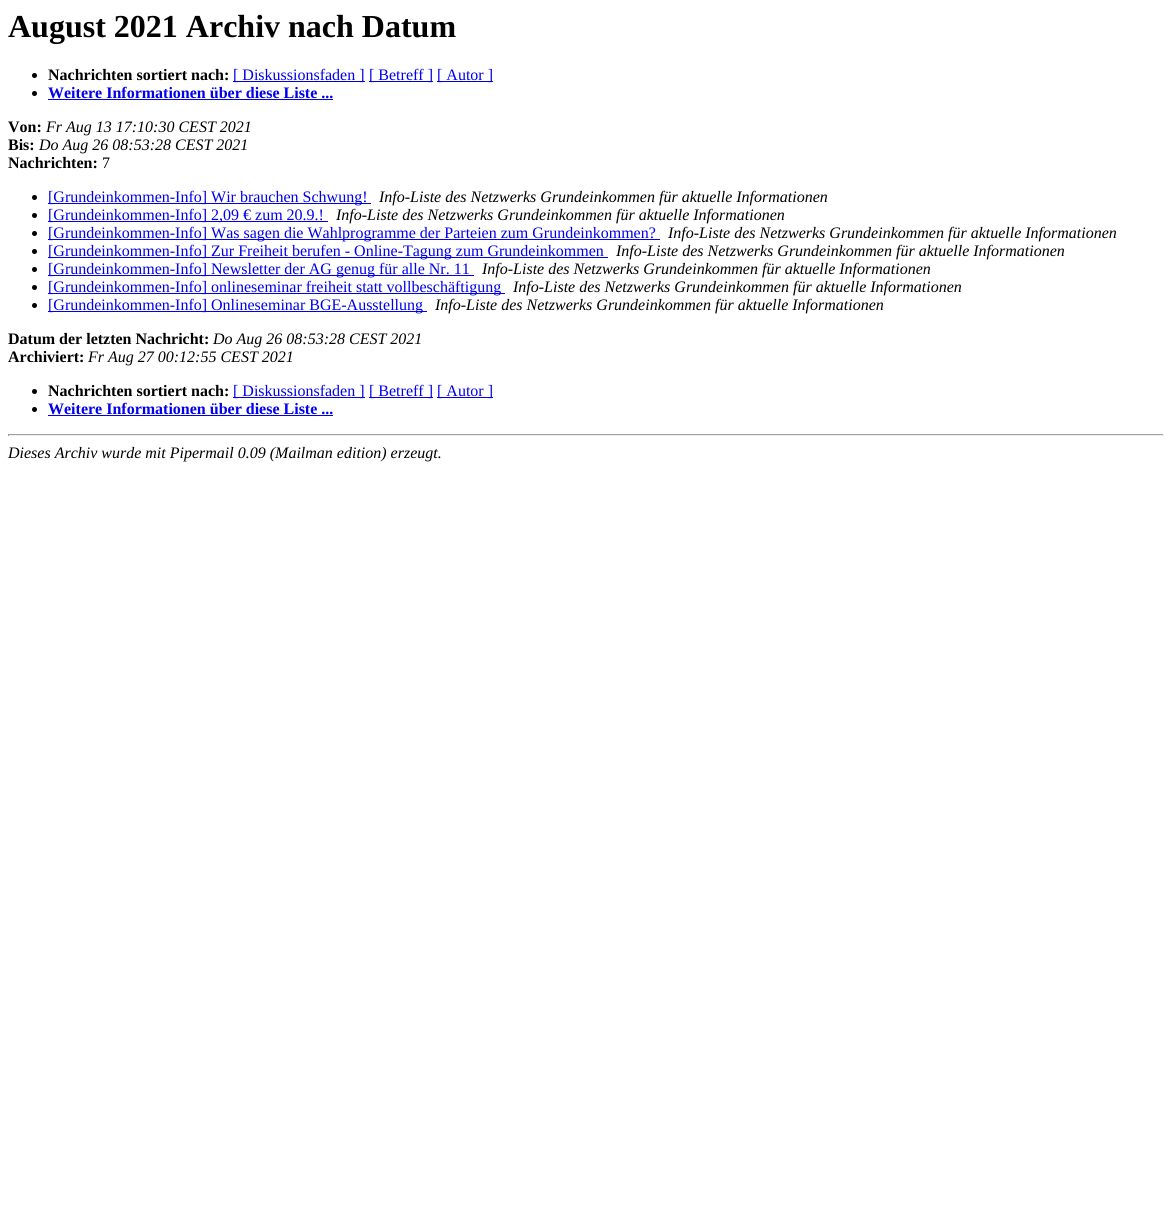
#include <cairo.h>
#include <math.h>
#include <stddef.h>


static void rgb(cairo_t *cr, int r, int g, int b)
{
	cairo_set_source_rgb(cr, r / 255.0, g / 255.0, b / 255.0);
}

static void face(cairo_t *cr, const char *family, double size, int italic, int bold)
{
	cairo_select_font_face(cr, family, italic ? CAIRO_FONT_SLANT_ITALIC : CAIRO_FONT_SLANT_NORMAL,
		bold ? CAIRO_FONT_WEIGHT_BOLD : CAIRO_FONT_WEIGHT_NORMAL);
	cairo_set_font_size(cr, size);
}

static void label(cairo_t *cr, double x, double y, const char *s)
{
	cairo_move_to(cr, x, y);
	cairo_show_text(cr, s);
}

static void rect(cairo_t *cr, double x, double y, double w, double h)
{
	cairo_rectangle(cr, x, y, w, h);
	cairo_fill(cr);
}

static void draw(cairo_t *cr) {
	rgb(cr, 255, 255, 255);
	cairo_paint(cr);
	face(cr, "Liberation Serif", 32, 0, 1);
	rgb(cr, 0, 0, 0);
	label(cr, 8, 37, "August 2021 Archiv nach Datum");
	cairo_new_path(cr);
	cairo_arc(cr, 34.5, 75.5, 2.5, 0, 2 * M_PI);
	cairo_fill(cr);
	face(cr, "Liberation Serif", 16, 0, 1);
	label(cr, 48, 80, "Nachrichten sortiert nach:");
	rgb(cr, 0, 0, 238);
	rect(cr, 233, 81, 132, 1);
	face(cr, "Liberation Serif", 16, 0, 0);
	label(cr, 233, 80, "[ Diskussionsfaden ]");
	rect(cr, 369, 81, 64, 1);
	label(cr, 369, 80, "[ Betreff ]");
	rect(cr, 437, 81, 56, 1);
	label(cr, 437, 80, "[ Autor ]");
	rgb(cr, 0, 0, 0);
	cairo_new_path(cr);
	cairo_arc(cr, 34.5, 93.5, 2.5, 0, 2 * M_PI);
	cairo_fill(cr);
	face(cr, "Liberation Serif", 16, 0, 1);
	rgb(cr, 0, 0, 238);
	label(cr, 48, 98, "Weitere Informationen über diese Liste ...");
	rect(cr, 48, 99, 285, 1);
	rgb(cr, 0, 0, 0);
	label(cr, 8, 132, "Von:");
	face(cr, "Liberation Serif", 16, 1, 0);
	label(cr, 46, 132, "Fr Aug 13 17:10:30 CEST 2021");
	face(cr, "Liberation Serif", 16, 0, 1);
	label(cr, 8, 150, "Bis:");
	face(cr, "Liberation Serif", 16, 1, 0);
	label(cr, 39, 150, "Do Aug 26 08:53:28 CEST 2021");
	face(cr, "Liberation Serif", 16, 0, 1);
	label(cr, 8, 168, "Nachrichten:");
	face(cr, "Liberation Serif", 16, 0, 0);
	label(cr, 102, 168, "7");
	cairo_new_path(cr);
	cairo_arc(cr, 34.5, 197.5, 2.5, 0, 2 * M_PI);
	cairo_fill(cr);
	rgb(cr, 0, 0, 238);
	rect(cr, 48, 203, 323, 1);
	label(cr, 48, 202, "[Grundeinkommen-Info] Wir brauchen Schwung!");
	face(cr, "Liberation Serif", 16, 1, 0);
	rgb(cr, 0, 0, 0);
	label(cr, 379, 202, "Info-Liste des Netzwerks Grundeinkommen für aktuelle Informationen");
	cairo_new_path(cr);
	cairo_arc(cr, 34.5, 215.5, 2.5, 0, 2 * M_PI);
	cairo_fill(cr);
	rgb(cr, 0, 0, 238);
	rect(cr, 48, 221, 280, 1);
	face(cr, "Liberation Serif", 16, 0, 0);
	label(cr, 48, 220, "[Grundeinkommen-Info] 2,09 € zum 20.9.!");
	face(cr, "Liberation Serif", 16, 1, 0);
	rgb(cr, 0, 0, 0);
	label(cr, 336, 220, "Info-Liste des Netzwerks Grundeinkommen für aktuelle Informationen");
	cairo_new_path(cr);
	cairo_arc(cr, 34.5, 233.5, 2.5, 0, 2 * M_PI);
	cairo_fill(cr);
	rgb(cr, 0, 0, 238);
	rect(cr, 48, 239, 612, 1);
	face(cr, "Liberation Serif", 16, 0, 0);
	label(cr, 48, 238, "[Grundeinkommen-Info] Was sagen die Wahlprogramme der Parteien zum Grundeinkommen?");
	face(cr, "Liberation Serif", 16, 1, 0);
	rgb(cr, 0, 0, 0);
	label(cr, 668, 238, "Info-Liste des Netzwerks Grundeinkommen für aktuelle Informationen");
	cairo_new_path(cr);
	cairo_arc(cr, 34.5, 251.5, 2.5, 0, 2 * M_PI);
	cairo_fill(cr);
	rgb(cr, 0, 0, 238);
	rect(cr, 48, 257, 560, 1);
	face(cr, "Liberation Serif", 16, 0, 0);
	label(cr, 48, 256, "[Grundeinkommen-Info] Zur Freiheit berufen - Online-Tagung zum Grundeinkommen");
	face(cr, "Liberation Serif", 16, 1, 0);
	rgb(cr, 0, 0, 0);
	label(cr, 616, 256, "Info-Liste des Netzwerks Grundeinkommen für aktuelle Informationen");
	cairo_new_path(cr);
	cairo_arc(cr, 34.5, 269.5, 2.5, 0, 2 * M_PI);
	cairo_fill(cr);
	rgb(cr, 0, 0, 238);
	rect(cr, 48, 275, 426, 1);
	face(cr, "Liberation Serif", 16, 0, 0);
	label(cr, 48, 274, "[Grundeinkommen-Info] Newsletter der AG genug für alle Nr. 11");
	face(cr, "Liberation Serif", 16, 1, 0);
	rgb(cr, 0, 0, 0);
	label(cr, 482, 274, "Info-Liste des Netzwerks Grundeinkommen für aktuelle Informationen");
	cairo_new_path(cr);
	cairo_arc(cr, 34.5, 287.5, 2.5, 0, 2 * M_PI);
	cairo_fill(cr);
	rgb(cr, 0, 0, 238);
	rect(cr, 48, 293, 457, 1);
	face(cr, "Liberation Serif", 16, 0, 0);
	label(cr, 48, 292, "[Grundeinkommen-Info] onlineseminar freiheit statt vollbeschäftigung");
	face(cr, "Liberation Serif", 16, 1, 0);
	rgb(cr, 0, 0, 0);
	label(cr, 513, 292, "Info-Liste des Netzwerks Grundeinkommen für aktuelle Informationen");
	cairo_new_path(cr);
	cairo_arc(cr, 34.5, 305.5, 2.5, 0, 2 * M_PI);
	cairo_fill(cr);
	rgb(cr, 0, 0, 238);
	rect(cr, 48, 311, 379, 1);
	face(cr, "Liberation Serif", 16, 0, 0);
	label(cr, 48, 310, "[Grundeinkommen-Info] Onlineseminar BGE-Ausstellung");
	face(cr, "Liberation Serif", 16, 1, 0);
	rgb(cr, 0, 0, 0);
	label(cr, 435, 310, "Info-Liste des Netzwerks Grundeinkommen für aktuelle Informationen");
	face(cr, "Liberation Serif", 16, 0, 1);
	label(cr, 8, 344, "Datum der letzten Nachricht:");
	face(cr, "Liberation Serif", 16, 1, 0);
	label(cr, 213, 344, "Do Aug 26 08:53:28 CEST 2021");
	face(cr, "Liberation Serif", 16, 0, 1);
	label(cr, 8, 362, "Archiviert:");
	face(cr, "Liberation Serif", 16, 1, 0);
	label(cr, 88, 362, "Fr Aug 27 00:12:55 CEST 2021");
	cairo_new_path(cr);
	cairo_arc(cr, 34.5, 391.5, 2.5, 0, 2 * M_PI);
	cairo_fill(cr);
	face(cr, "Liberation Serif", 16, 0, 1);
	label(cr, 48, 396, "Nachrichten sortiert nach:");
	rgb(cr, 0, 0, 238);
	rect(cr, 233, 397, 132, 1);
	face(cr, "Liberation Serif", 16, 0, 0);
	label(cr, 233, 396, "[ Diskussionsfaden ]");
	rect(cr, 369, 397, 64, 1);
	label(cr, 369, 396, "[ Betreff ]");
	rect(cr, 437, 397, 56, 1);
	label(cr, 437, 396, "[ Autor ]");
	rgb(cr, 0, 0, 0);
	cairo_new_path(cr);
	cairo_arc(cr, 34.5, 409.5, 2.5, 0, 2 * M_PI);
	cairo_fill(cr);
	face(cr, "Liberation Serif", 16, 0, 1);
	rgb(cr, 0, 0, 238);
	label(cr, 48, 414, "Weitere Informationen über diese Liste ...");
	rect(cr, 48, 415, 285, 1);
	rgb(cr, 159, 159, 159);
	rect(cr, 8, 434, 1156, 1);
	rgb(cr, 238, 238, 238);
	rect(cr, 1163, 434, 1, 2);
	rect(cr, 8, 435, 1156, 1);
	rgb(cr, 159, 159, 159);
	rect(cr, 8, 434, 1, 2);
	face(cr, "Liberation Serif", 16, 1, 0);
	rgb(cr, 0, 0, 0);
	label(cr, 8, 458, "Dieses Archiv wurde mit Pipermail 0.09 (Mailman edition) erzeugt.");
}

int main(void) {
	cairo_surface_t *surface = cairo_image_surface_create(CAIRO_FORMAT_RGB24, 1172, 1210);
	cairo_t *cr = cairo_create(surface);
	cairo_font_options_t *options = cairo_font_options_create();
	cairo_font_options_set_hint_metrics(options, CAIRO_HINT_METRICS_OFF);
	cairo_font_options_set_hint_style(options, CAIRO_HINT_STYLE_NONE);
	cairo_set_font_options(cr, options);
	cairo_set_miter_limit(cr, 4);
	draw(cr);
	cairo_surface_write_to_png(surface, "render.png");
	cairo_font_options_destroy(options);
	cairo_destroy(cr);
	cairo_surface_destroy(surface);
	return 0;
}
